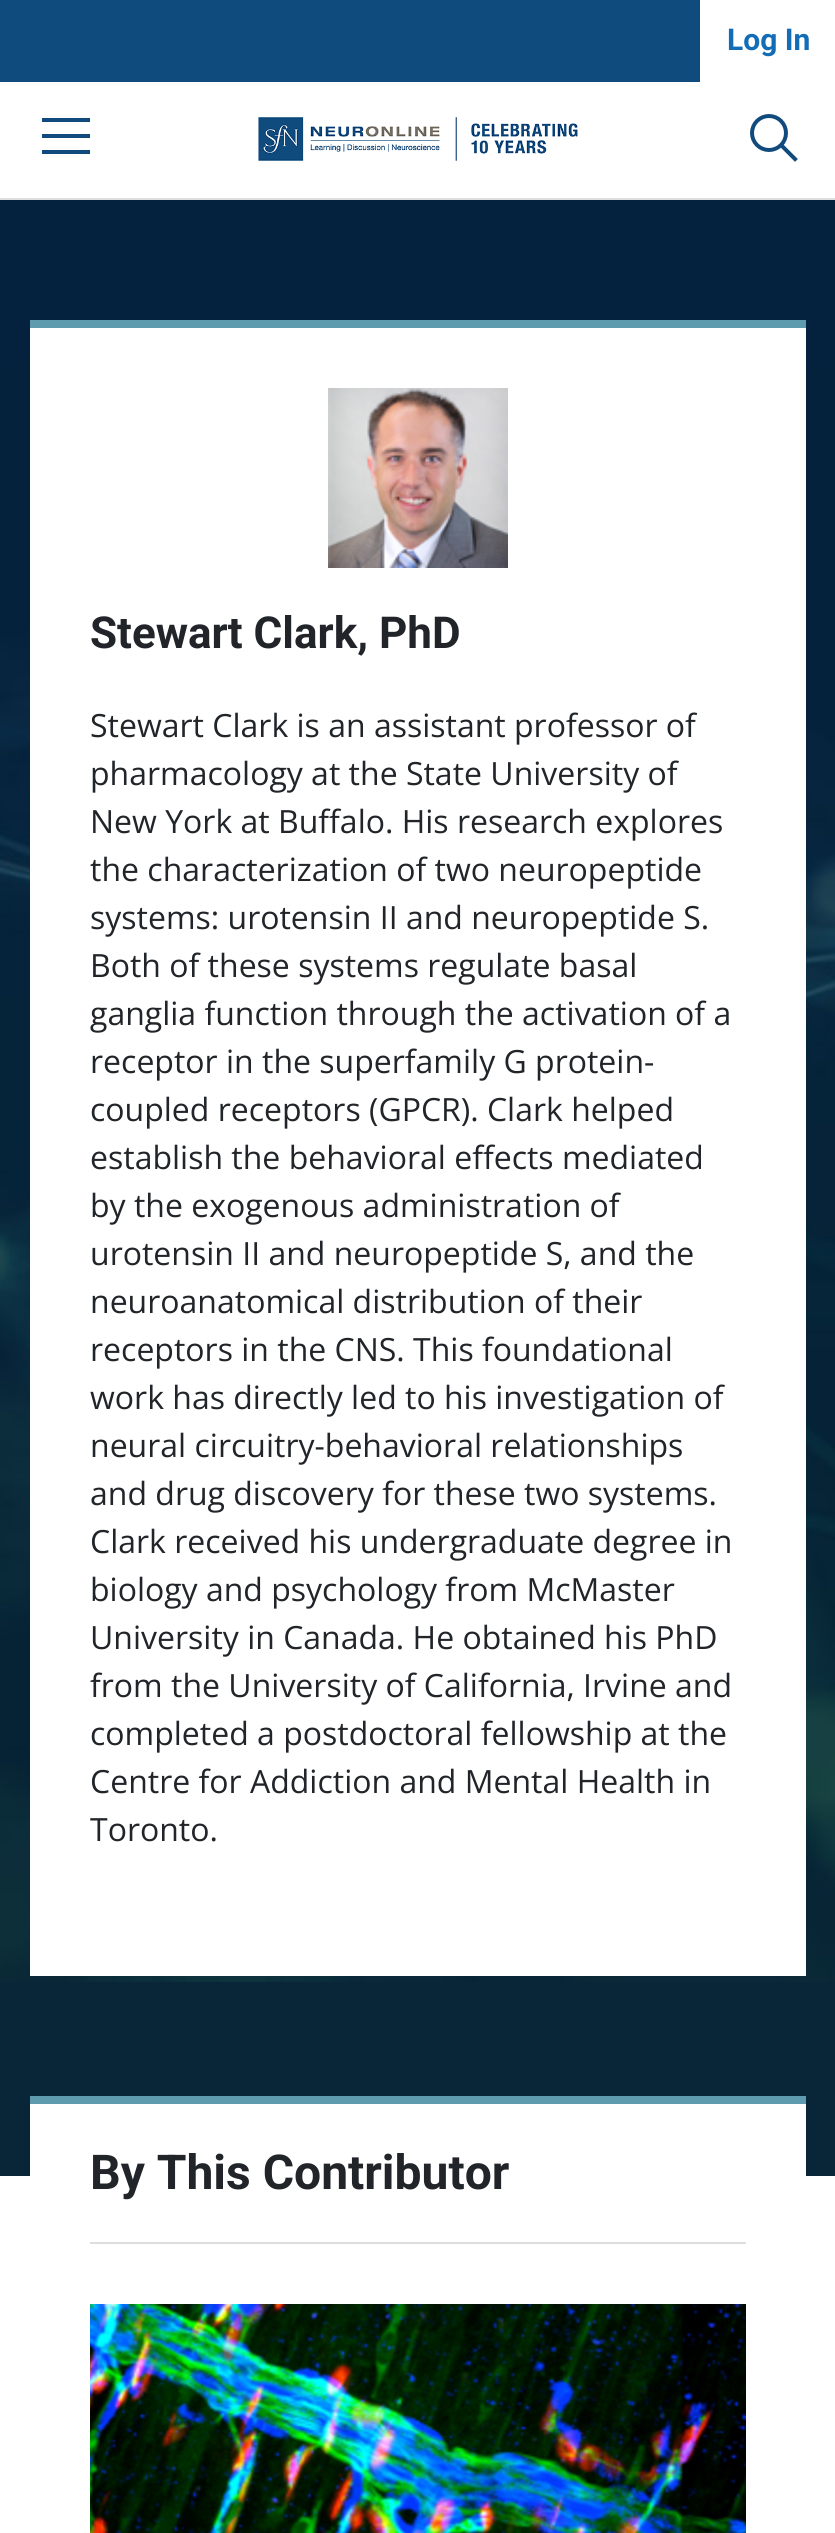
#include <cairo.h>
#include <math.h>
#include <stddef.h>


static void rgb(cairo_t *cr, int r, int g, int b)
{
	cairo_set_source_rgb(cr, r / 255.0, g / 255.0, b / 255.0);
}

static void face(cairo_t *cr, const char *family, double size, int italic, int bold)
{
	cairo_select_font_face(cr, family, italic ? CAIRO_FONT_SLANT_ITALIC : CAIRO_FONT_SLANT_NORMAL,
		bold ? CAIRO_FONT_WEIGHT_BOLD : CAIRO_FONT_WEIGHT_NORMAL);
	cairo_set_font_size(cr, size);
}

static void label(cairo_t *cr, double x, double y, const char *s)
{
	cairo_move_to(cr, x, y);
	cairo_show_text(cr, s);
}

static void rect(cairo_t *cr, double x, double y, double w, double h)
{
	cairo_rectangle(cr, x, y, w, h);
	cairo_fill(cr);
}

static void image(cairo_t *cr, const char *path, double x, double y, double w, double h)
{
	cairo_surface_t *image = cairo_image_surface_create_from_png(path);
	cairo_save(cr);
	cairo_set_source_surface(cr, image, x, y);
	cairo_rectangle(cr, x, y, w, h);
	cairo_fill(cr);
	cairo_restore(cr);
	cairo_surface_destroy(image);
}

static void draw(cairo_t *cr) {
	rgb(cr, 255, 255, 255);
	cairo_paint(cr);
	rgb(cr, 221, 221, 221);
	rect(cr, 0, 198, 835, 2);
	rgb(cr, 16, 75, 125);
	rect(cr, 0, 0, 700, 82);
	face(cr, "Roboto", 30, 0, 1);
	rgb(cr, 18, 109, 182);
	label(cr, 727, 50, "Log In");
	image(cr, "image0.png", 42, 118, 48, 36);
	image(cr, "image1.png", 258, 117, 320, 44);
	image(cr, "image2.png", 750, 114, 48, 48);
	rgb(cr, 9, 38, 56);
	rect(cr, 0, 1982, 835, 194);
	image(cr, "image3.png", 0, 200, 835, 1782);
	rgb(cr, 255, 255, 255);
	rect(cr, 30, 328, 776, 1648);
	rgb(cr, 95, 155, 175);
	rect(cr, 30, 320, 776, 8);
	image(cr, "image4.png", 328, 388, 180, 180);
	face(cr, "Roboto", 44, 0, 1);
	rgb(cr, 33, 37, 41);
	label(cr, 90, 648, "Stewart Clark, PhD");
	face(cr, "Open Sans", 32, 0, 0);
	label(cr, 90, 737, "Stewart Clark is an assistant professor of");
	label(cr, 90, 785, "pharmacology at the State University of");
	label(cr, 90, 833, "New York at Buffalo. His research explores");
	label(cr, 90, 881, "the characterization of two neuropeptide");
	label(cr, 90, 929, "systems: urotensin II and neuropeptide S.");
	label(cr, 90, 977, "Both of these systems regulate basal");
	label(cr, 90, 1025, "ganglia function through the activation of a");
	label(cr, 90, 1073, "receptor in the superfamily G protein-");
	label(cr, 90, 1121, "coupled receptors (GPCR). Clark helped");
	label(cr, 90, 1169, "establish the behavioral effects mediated");
	label(cr, 90, 1217, "by the exogenous administration of");
	label(cr, 90, 1265, "urotensin II and neuropeptide S, and the");
	label(cr, 90, 1313, "neuroanatomical distribution of their");
	label(cr, 90, 1361, "receptors in the CNS. This foundational");
	label(cr, 90, 1409, "work has directly led to his investigation of");
	label(cr, 90, 1457, "neural circuitry-behavioral relationships");
	label(cr, 90, 1505, "and drug discovery for these two systems.");
	label(cr, 90, 1553, "Clark received his undergraduate degree in");
	label(cr, 90, 1601, "biology and psychology from McMaster");
	label(cr, 90, 1649, "University in Canada. He obtained his PhD");
	label(cr, 90, 1697, "from the University of California, Irvine and");
	label(cr, 90, 1745, "completed a postdoctoral fellowship at the");
	label(cr, 90, 1793, "Centre for Addiction and Mental Health in");
	label(cr, 90, 1841, "Toronto.");
	rgb(cr, 255, 255, 255);
	rect(cr, 30, 2104, 776, 72);
	rgb(cr, 95, 155, 175);
	rect(cr, 30, 2096, 776, 8);
	rgb(cr, 221, 221, 221);
	rect(cr, 90, 2242, 656, 2);
	face(cr, "Roboto", 48, 0, 1);
	rgb(cr, 33, 37, 41);
	label(cr, 90, 2189, "By This Contributor");
	image(cr, "image5.png", 90, 2304, 656, 229);
}

int main(void) {
	cairo_surface_t *surface = cairo_image_surface_create(CAIRO_FORMAT_RGB24, 835, 2533);
	cairo_t *cr = cairo_create(surface);
	cairo_font_options_t *options = cairo_font_options_create();
	cairo_font_options_set_hint_metrics(options, CAIRO_HINT_METRICS_OFF);
	cairo_font_options_set_hint_style(options, CAIRO_HINT_STYLE_NONE);
	cairo_set_font_options(cr, options);
	cairo_set_miter_limit(cr, 4);
	draw(cr);
	cairo_surface_write_to_png(surface, "render.png");
	cairo_font_options_destroy(options);
	cairo_destroy(cr);
	cairo_surface_destroy(surface);
	return 0;
}
